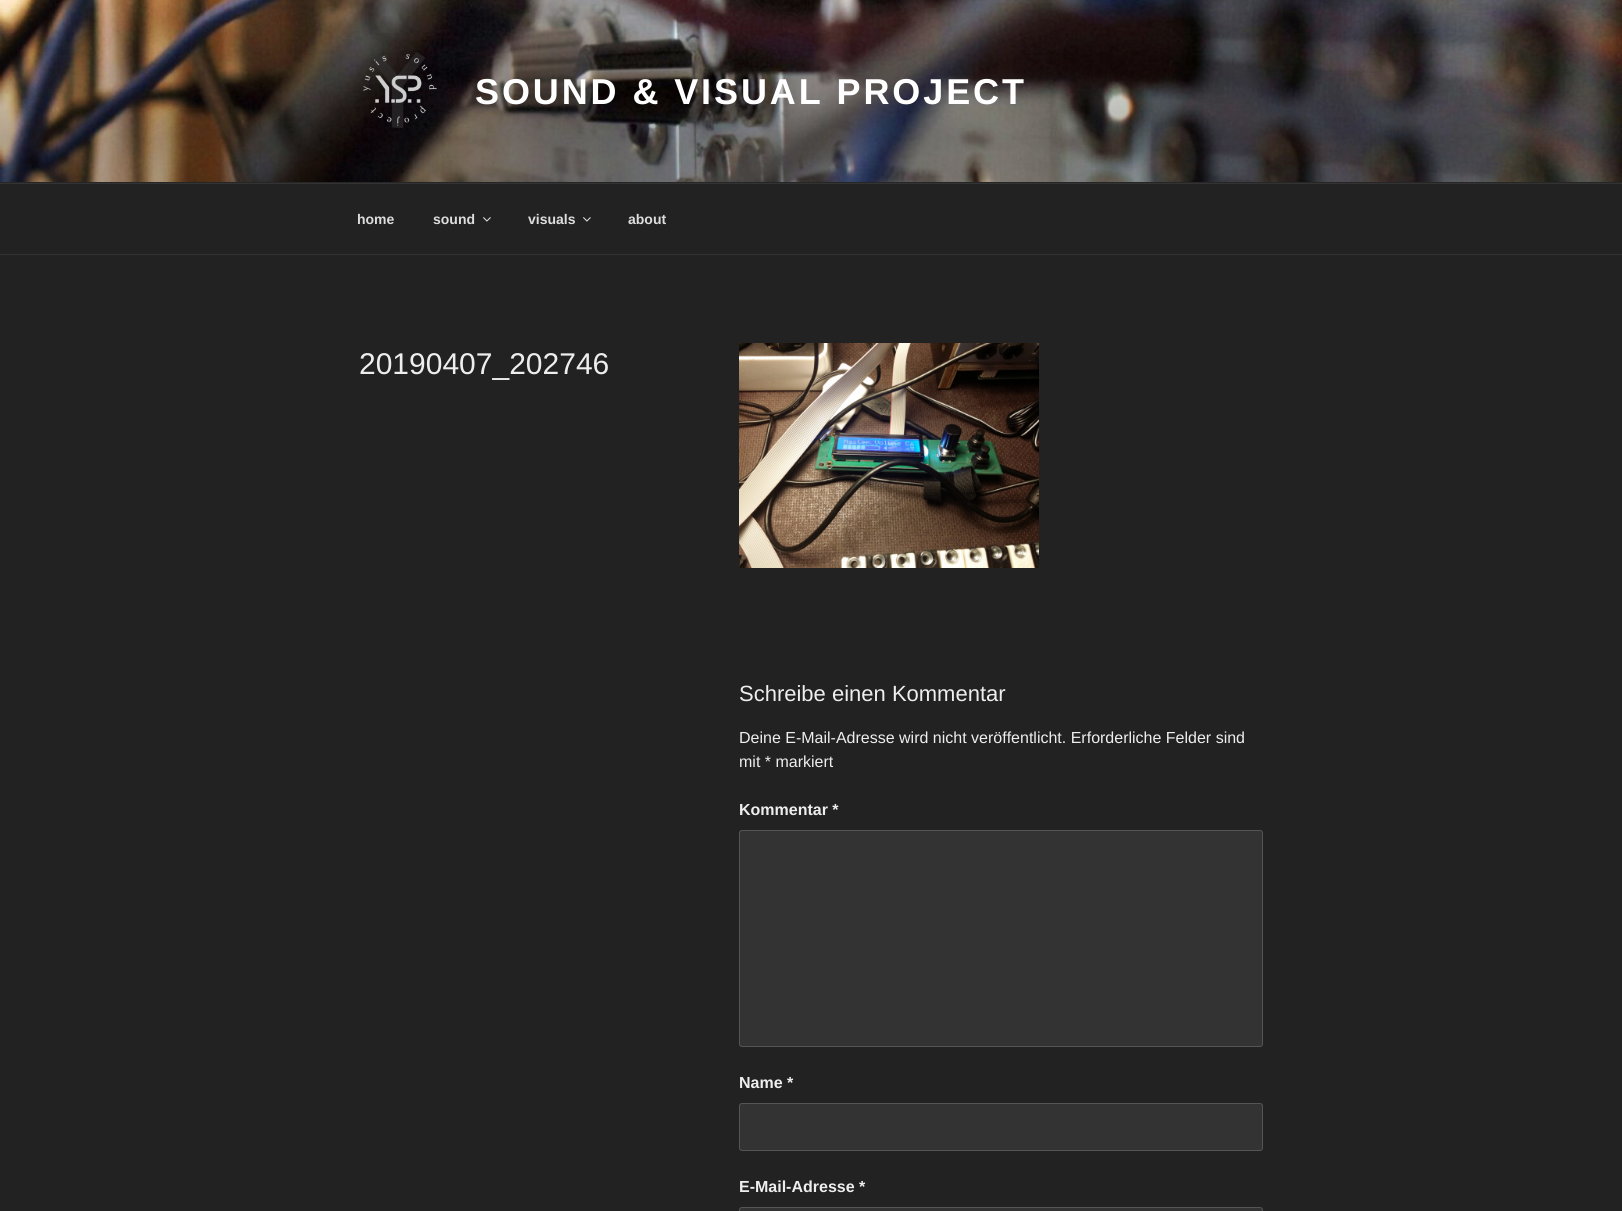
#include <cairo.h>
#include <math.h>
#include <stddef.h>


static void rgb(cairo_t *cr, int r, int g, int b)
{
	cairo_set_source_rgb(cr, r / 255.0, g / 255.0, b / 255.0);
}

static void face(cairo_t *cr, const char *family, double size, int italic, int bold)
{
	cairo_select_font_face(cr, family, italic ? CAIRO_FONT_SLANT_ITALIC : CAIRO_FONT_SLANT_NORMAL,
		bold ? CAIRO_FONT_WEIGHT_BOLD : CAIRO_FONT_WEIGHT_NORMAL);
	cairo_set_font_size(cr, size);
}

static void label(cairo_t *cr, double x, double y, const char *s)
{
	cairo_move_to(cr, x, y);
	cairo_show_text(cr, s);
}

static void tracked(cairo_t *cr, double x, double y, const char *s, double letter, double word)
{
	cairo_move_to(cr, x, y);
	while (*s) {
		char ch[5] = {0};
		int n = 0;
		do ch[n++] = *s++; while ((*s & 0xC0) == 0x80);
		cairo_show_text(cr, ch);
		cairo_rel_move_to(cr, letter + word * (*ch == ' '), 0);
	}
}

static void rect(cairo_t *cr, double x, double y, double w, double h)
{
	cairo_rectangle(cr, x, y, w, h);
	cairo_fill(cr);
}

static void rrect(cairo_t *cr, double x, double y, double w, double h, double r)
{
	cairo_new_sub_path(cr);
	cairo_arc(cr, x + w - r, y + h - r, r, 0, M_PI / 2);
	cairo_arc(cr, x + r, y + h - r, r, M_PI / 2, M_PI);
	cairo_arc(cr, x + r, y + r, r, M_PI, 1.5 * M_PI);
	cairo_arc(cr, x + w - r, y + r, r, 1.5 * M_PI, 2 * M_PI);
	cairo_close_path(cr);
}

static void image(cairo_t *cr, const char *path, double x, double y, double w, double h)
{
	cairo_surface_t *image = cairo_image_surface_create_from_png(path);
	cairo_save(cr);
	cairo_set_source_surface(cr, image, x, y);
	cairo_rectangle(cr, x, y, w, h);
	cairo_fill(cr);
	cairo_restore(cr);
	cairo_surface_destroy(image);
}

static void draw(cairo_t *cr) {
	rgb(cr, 34, 34, 34);
	cairo_paint(cr);
	rgb(cr, 38, 38, 38);
	rect(cr, 0, 182, 1622, 1);
	image(cr, "image0.png", 0, 0, 1622, 182);
	image(cr, "image1.png", 363, 52, 74, 76);
	face(cr, "Liberation Sans", 36, 0, 1);
	rgb(cr, 255, 255, 255);
	tracked(cr, 475, 104, "SOUND & VISUAL PROJECT", 2.9, 0);
	rgb(cr, 51, 51, 51);
	rect(cr, 0, 183, 1622, 1);
	rect(cr, 0, 254, 1622, 1);
	face(cr, "Liberation Sans", 14, 0, 1);
	rgb(cr, 221, 221, 221);
	label(cr, 357, 224, "home");
	label(cr, 433, 224, "sound");
	image(cr, "image2.png", 483, 217, 8, 5);
	label(cr, 528, 224, "visuals");
	image(cr, "image2.png", 583, 217, 8, 5);
	label(cr, 628, 224, "about");
	face(cr, "Liberation Sans", 30, 0, 0);
	rgb(cr, 238, 238, 238);
	label(cr, 359, 374, "20190407_202746");
	image(cr, "image3.png", 739, 343, 300, 225);
	face(cr, "Liberation Sans", 22, 0, 0);
	label(cr, 739, 701, "Schreibe einen Kommentar");
	face(cr, "Liberation Sans", 16, 0, 0);
	label(cr, 739, 743, "Deine E-Mail-Adresse wird nicht veröffentlicht. Erforderliche Felder sind");
	label(cr, 739, 767, "mit * markiert");
	face(cr, "Liberation Sans", 16, 0, 1);
	label(cr, 739, 815, "Kommentar *");
	rgb(cr, 51, 51, 51);
	rrect(cr, 739.5, 830.5, 523, 216, 2.5);
	cairo_fill_preserve(cr);
	rgb(cr, 85, 85, 85);
	cairo_set_line_width(cr, 1);
	cairo_stroke(cr);
	rgb(cr, 238, 238, 238);
	label(cr, 739, 1088, "Name *");
	rgb(cr, 51, 51, 51);
	rrect(cr, 739.5, 1103.5, 523, 47, 2.5);
	cairo_fill_preserve(cr);
	rgb(cr, 85, 85, 85);
	cairo_stroke(cr);
	rgb(cr, 238, 238, 238);
	label(cr, 739, 1192, "E-Mail-Adresse *");
	rgb(cr, 51, 51, 51);
	rrect(cr, 739.5, 1207.5, 523, 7, 2.5);
	cairo_fill_preserve(cr);
	rgb(cr, 85, 85, 85);
	cairo_stroke(cr);
}

int main(void) {
	cairo_surface_t *surface = cairo_image_surface_create(CAIRO_FORMAT_RGB24, 1622, 1211);
	cairo_t *cr = cairo_create(surface);
	cairo_font_options_t *options = cairo_font_options_create();
	cairo_font_options_set_hint_metrics(options, CAIRO_HINT_METRICS_OFF);
	cairo_font_options_set_hint_style(options, CAIRO_HINT_STYLE_NONE);
	cairo_set_font_options(cr, options);
	cairo_set_miter_limit(cr, 4);
	draw(cr);
	cairo_surface_write_to_png(surface, "render.png");
	cairo_font_options_destroy(options);
	cairo_destroy(cr);
	cairo_surface_destroy(surface);
	return 0;
}
